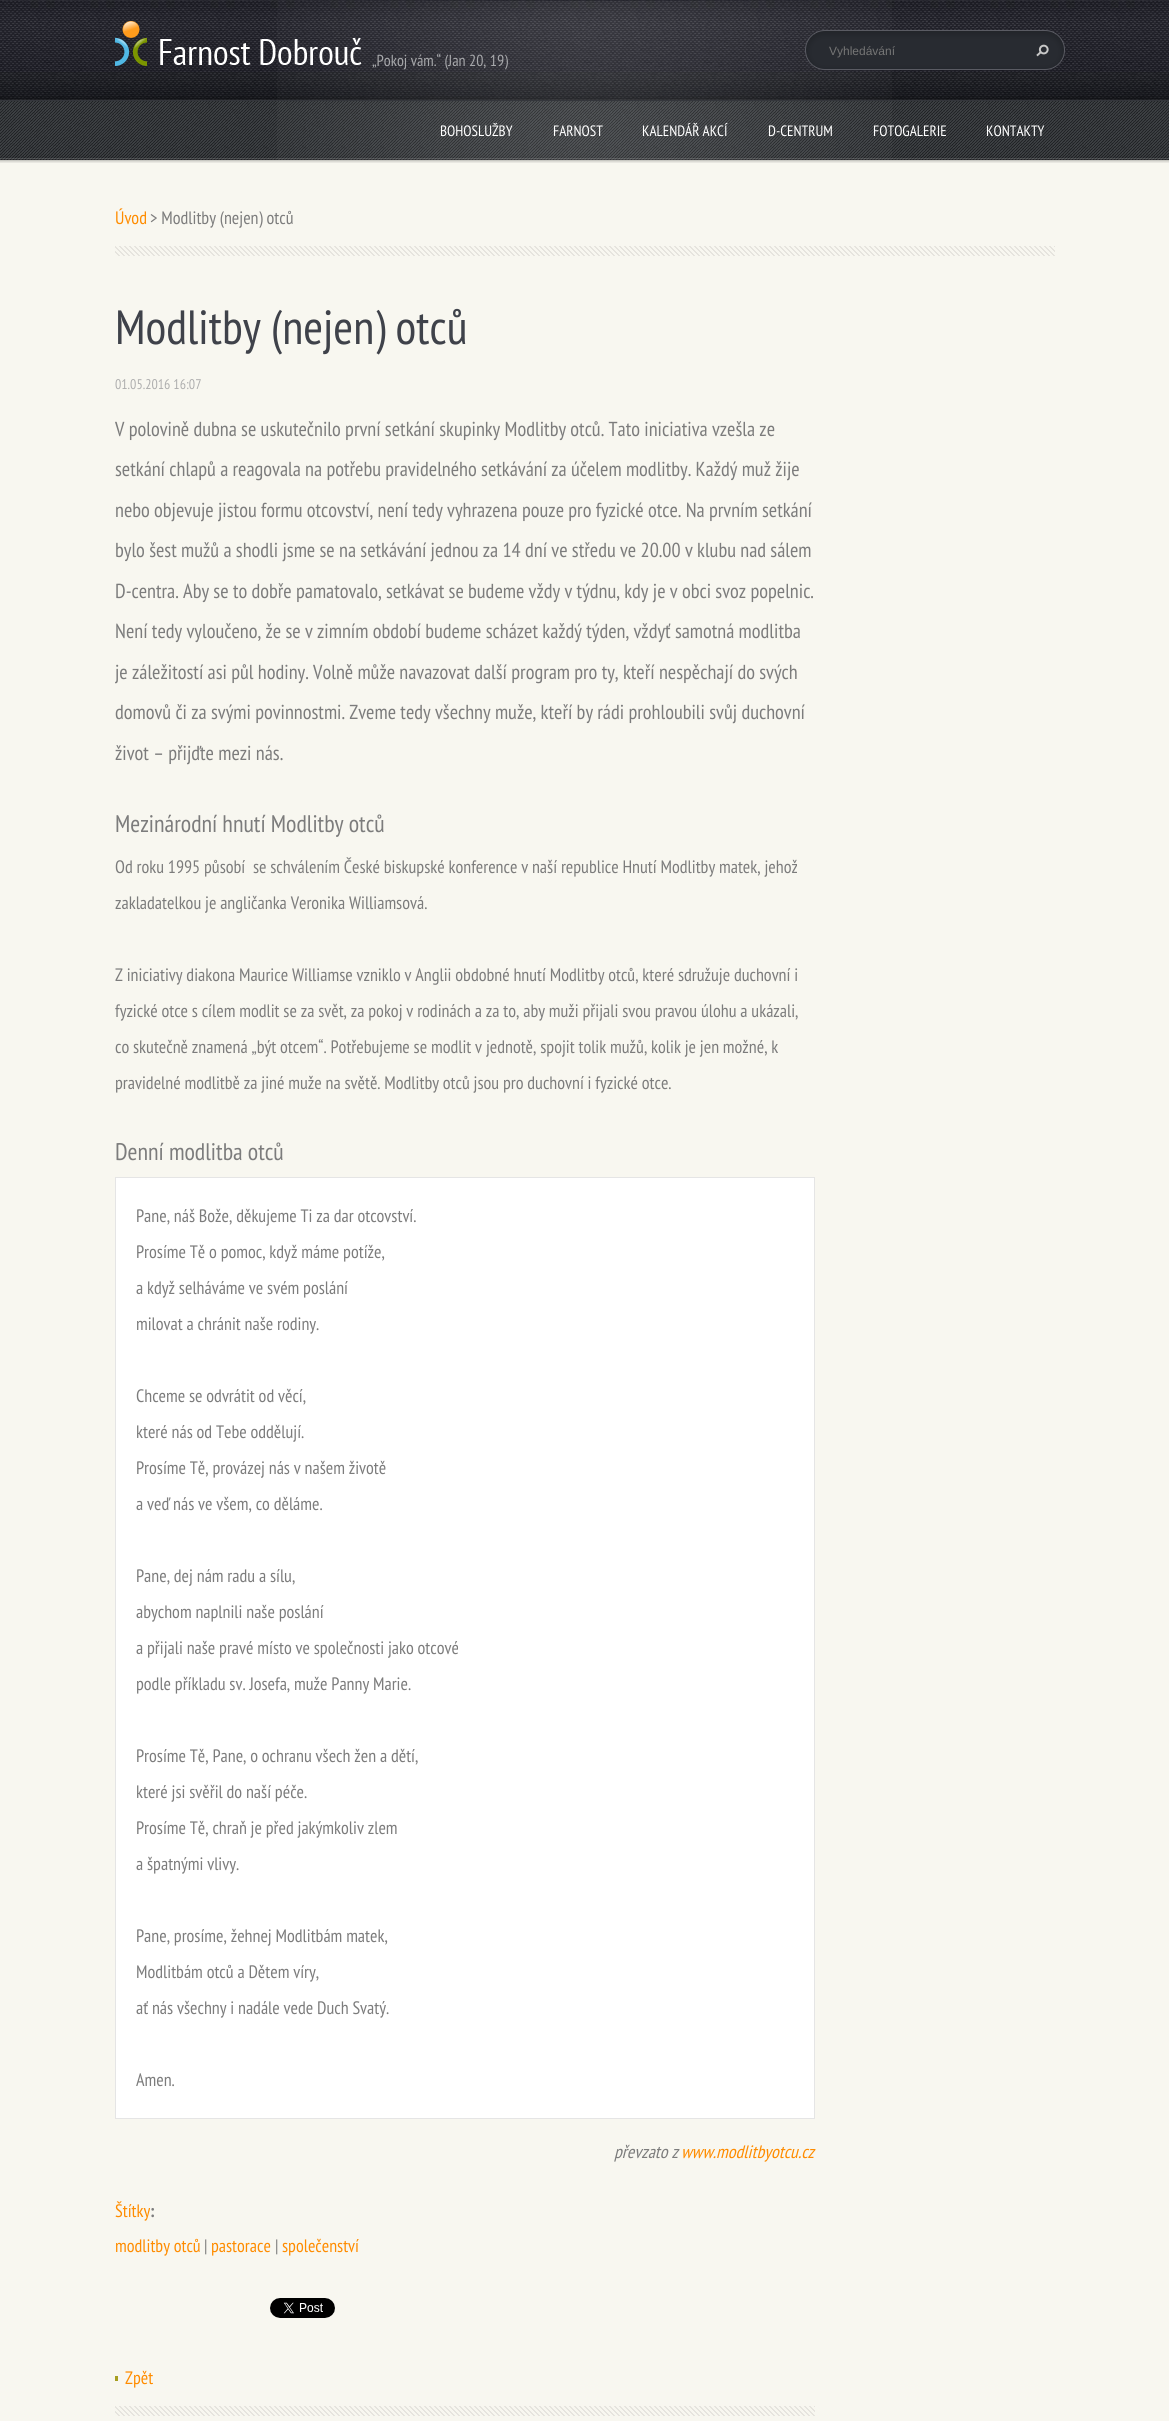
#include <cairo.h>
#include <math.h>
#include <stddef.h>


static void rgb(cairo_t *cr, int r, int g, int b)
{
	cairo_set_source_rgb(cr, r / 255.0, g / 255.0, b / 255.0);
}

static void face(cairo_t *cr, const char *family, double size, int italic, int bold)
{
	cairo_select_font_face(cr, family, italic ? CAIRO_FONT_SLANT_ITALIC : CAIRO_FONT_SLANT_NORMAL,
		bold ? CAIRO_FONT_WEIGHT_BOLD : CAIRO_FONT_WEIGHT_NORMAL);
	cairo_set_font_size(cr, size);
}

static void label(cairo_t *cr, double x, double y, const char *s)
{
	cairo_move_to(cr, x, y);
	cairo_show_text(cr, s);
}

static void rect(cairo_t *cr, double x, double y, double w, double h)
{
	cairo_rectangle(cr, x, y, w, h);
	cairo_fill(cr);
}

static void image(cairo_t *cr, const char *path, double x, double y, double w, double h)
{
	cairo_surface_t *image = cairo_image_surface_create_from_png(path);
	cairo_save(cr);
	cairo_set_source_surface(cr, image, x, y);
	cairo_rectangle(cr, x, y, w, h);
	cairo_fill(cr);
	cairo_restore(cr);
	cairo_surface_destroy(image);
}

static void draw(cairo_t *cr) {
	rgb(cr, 255, 255, 255);
	cairo_paint(cr);
	image(cr, "image0.png", 0, 100, 1169, 60);
	image(cr, "image1.png", 0, 0, 1169, 100);
	image(cr, "image2.png", 277, 1, 615, 99);
	image(cr, "image3.png", 115, 21, 247, 45);
	face(cr, "PT Sans Narrow", 16, 0, 0);
	rgb(cr, 167, 168, 171);
	label(cr, 372, 66, "„Pokoj vám.“ (Jan 20, 19)");
	image(cr, "image4.png", 805, 30, 260, 40);
	face(cr, "Liberation Sans", 12, 0, 0);
	rgb(cr, 117, 117, 117);
	label(cr, 829, 55, "Vyhledávání");
	image(cr, "image5.png", 1036, 44, 13, 13);
	image(cr, "image6.png", 0, 100, 1169, 60);
	image(cr, "image7.png", 277, 101, 615, 59);
	face(cr, "PT Sans Narrow", 15, 0, 0);
	rgb(cr, 255, 255, 255);
	label(cr, 440, 136, "BOHOSLUŽBY");
	label(cr, 553, 136, "FARNOST");
	label(cr, 642, 136, "KALENDÁŘ AKCÍ");
	label(cr, 768, 136, "D-CENTRUM");
	label(cr, 873, 136, "FOTOGALERIE");
	label(cr, 986, 136, "KONTAKTY");
	rgb(cr, 248, 247, 240);
	rect(cr, 0, 160, 1169, 2261);
	image(cr, "image8.png", 0, 160, 1169, 3);
	image(cr, "image9.png", 115, 246, 940, 10);
	face(cr, "PT Sans Narrow", 18, 0, 0);
	rgb(cr, 255, 140, 0);
	label(cr, 115, 224, "Úvod");
	rgb(cr, 124, 124, 124);
	label(cr, 150, 224, "> Modlitby (nejen) otců");
	image(cr, "image10.png", 115, 2406, 700, 10);
	face(cr, "PT Sans Narrow", 48, 0, 0);
	rgb(cr, 63, 66, 74);
	label(cr, 115, 344, "Modlitby (nejen) otců");
	face(cr, "PT Sans Narrow", 14, 0, 0);
	rgb(cr, 174, 174, 174);
	label(cr, 115, 389, "01.05.2016 16:07");
	face(cr, "PT Sans Narrow", 20.25, 0, 0);
	rgb(cr, 124, 124, 124);
	label(cr, 115, 436, "V polovině dubna se uskutečnilo první setkání skupinky Modlitby otců. Tato iniciativa vzešla ze");
	label(cr, 115, 476, "setkání chlapů a reagovala na potřebu pravidelného setkávání za účelem modlitby. Každý muž žije");
	label(cr, 115, 517, "nebo objevuje jistou formu otcovství, není tedy vyhrazena pouze pro fyzické otce. Na prvním setkání");
	label(cr, 115, 557, "bylo šest mužů a shodli jsme se na setkávání jednou za 14 dní ve středu ve 20.00 v klubu nad sálem");
	label(cr, 115, 598, "D-centra. Aby se to dobře pamatovalo, setkávat se budeme vždy v týdnu, kdy je v obci svoz popelnic.");
	label(cr, 115, 638, "Není tedy vyloučeno, že se v zimním období budeme scházet každý týden, vždyť samotná modlitba");
	label(cr, 115, 679, "je záležitostí asi půl hodiny. Volně může navazovat další program pro ty, kteří nespěchají do svých");
	label(cr, 115, 719, "domovů či za svými povinnostmi. Zveme tedy všechny muže, kteří by rádi prohloubili svůj duchovní");
	label(cr, 115, 760, "život – přijďte mezi nás.");
	face(cr, "PT Sans Narrow", 24, 0, 0);
	label(cr, 115, 832, "Mezinárodní hnutí Modlitby otců");
	face(cr, "PT Sans Narrow", 18, 0, 0);
	label(cr, 115, 873, "Od roku 1995 působí  se schválením České biskupské konference v naší republice Hnutí Modlitby matek, jehož");
	label(cr, 115, 909, "zakladatelkou je angličanka Veronika Williamsová.");
	label(cr, 115, 981, "Z iniciativy diakona Maurice Williamse vzniklo v Anglii obdobné hnutí Modlitby otců, které sdružuje duchovní i");
	label(cr, 115, 1017, "fyzické otce s cílem modlit se za svět, za pokoj v rodinách a za to, aby muži přijali svou pravou úlohu a ukázali,");
	label(cr, 115, 1053, "co skutečně znamená „být otcem“. Potřebujeme se modlit v jednotě, spojit tolik mužů, kolik je jen možné, k");
	label(cr, 115, 1089, "pravidelné modlitbě za jiné muže na světě. Modlitby otců jsou pro duchovní i fyzické otce.");
	face(cr, "PT Sans Narrow", 24, 0, 0);
	label(cr, 115, 1160, "Denní modlitba otců");
	rgb(cr, 255, 255, 255);
	cairo_rectangle(cr, 115.5, 1177.5, 699, 941);
	cairo_fill_preserve(cr);
	rgb(cr, 229, 229, 229);
	cairo_set_line_width(cr, 1);
	cairo_stroke(cr);
	face(cr, "PT Sans Narrow", 18, 0, 0);
	rgb(cr, 124, 124, 124);
	label(cr, 136, 1222, "Pane, náš Bože, děkujeme Ti za dar otcovství.");
	label(cr, 136, 1258, "Prosíme Tě o pomoc, když máme potíže,");
	label(cr, 136, 1294, "a když selháváme ve svém poslání");
	label(cr, 136, 1330, "milovat a chránit naše rodiny.");
	label(cr, 136, 1402, "Chceme se odvrátit od věcí,");
	label(cr, 136, 1438, "které nás od Tebe oddělují.");
	label(cr, 136, 1474, "Prosíme Tě, provázej nás v našem životě");
	label(cr, 136, 1510, "a veď nás ve všem, co děláme.");
	label(cr, 136, 1582, "Pane, dej nám radu a sílu,");
	label(cr, 136, 1618, "abychom naplnili naše poslání");
	label(cr, 136, 1654, "a přijali naše pravé místo ve společnosti jako otcové");
	label(cr, 136, 1690, "podle příkladu sv. Josefa, muže Panny Marie.");
	label(cr, 136, 1762, "Prosíme Tě, Pane, o ochranu všech žen a dětí,");
	label(cr, 136, 1798, "které jsi svěřil do naší péče.");
	label(cr, 136, 1834, "Prosíme Tě, chraň je před jakýmkoliv zlem");
	label(cr, 136, 1870, "a špatnými vlivy.");
	label(cr, 136, 1942, "Pane, prosíme, žehnej Modlitbám matek,");
	label(cr, 136, 1978, "Modlitbám otců a Dětem víry,");
	label(cr, 136, 2014, "ať nás všechny i nadále vede Duch Svatý.");
	label(cr, 136, 2086, "Amen.");
	face(cr, "PT Sans Narrow", 18, 1, 0);
	label(cr, 614, 2158, "převzato z");
	rgb(cr, 255, 140, 0);
	label(cr, 681, 2158, "www.modlitbyotcu.cz");
	face(cr, "PT Sans Narrow", 18, 0, 0);
	label(cr, 115, 2217, "Štítky");
	face(cr, "PT Sans Narrow", 18, 0, 1);
	rgb(cr, 124, 124, 124);
	label(cr, 150, 2217, ":");
	face(cr, "PT Sans Narrow", 18, 0, 0);
	rgb(cr, 255, 140, 0);
	label(cr, 115, 2252, "modlitby otců");
	rgb(cr, 124, 124, 124);
	label(cr, 204, 2252, "|");
	rgb(cr, 255, 140, 0);
	label(cr, 211, 2252, "pastorace");
	rgb(cr, 124, 124, 124);
	label(cr, 275, 2252, "|");
	rgb(cr, 255, 140, 0);
	label(cr, 282, 2252, "společenství");
	image(cr, "image11.png", 270, 2298, 65, 20);
	label(cr, 125, 2384, "Zpět");
	rgb(cr, 167, 159, 32);
	rect(cr, 115, 2376, 3, 5);
}

int main(void) {
	cairo_surface_t *surface = cairo_image_surface_create(CAIRO_FORMAT_RGB24, 1169, 2421);
	cairo_t *cr = cairo_create(surface);
	cairo_font_options_t *options = cairo_font_options_create();
	cairo_font_options_set_hint_metrics(options, CAIRO_HINT_METRICS_OFF);
	cairo_font_options_set_hint_style(options, CAIRO_HINT_STYLE_NONE);
	cairo_set_font_options(cr, options);
	cairo_set_miter_limit(cr, 4);
	draw(cr);
	cairo_surface_write_to_png(surface, "render.png");
	cairo_font_options_destroy(options);
	cairo_destroy(cr);
	cairo_surface_destroy(surface);
	return 0;
}
